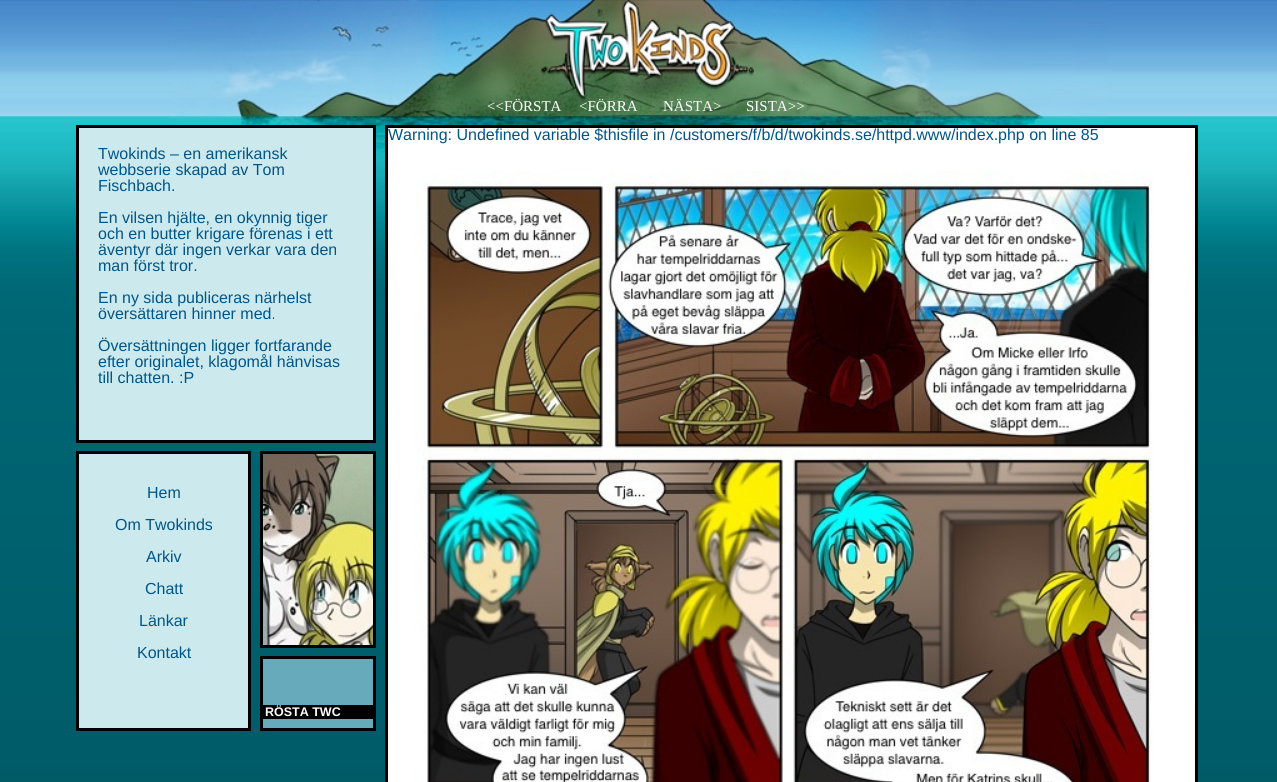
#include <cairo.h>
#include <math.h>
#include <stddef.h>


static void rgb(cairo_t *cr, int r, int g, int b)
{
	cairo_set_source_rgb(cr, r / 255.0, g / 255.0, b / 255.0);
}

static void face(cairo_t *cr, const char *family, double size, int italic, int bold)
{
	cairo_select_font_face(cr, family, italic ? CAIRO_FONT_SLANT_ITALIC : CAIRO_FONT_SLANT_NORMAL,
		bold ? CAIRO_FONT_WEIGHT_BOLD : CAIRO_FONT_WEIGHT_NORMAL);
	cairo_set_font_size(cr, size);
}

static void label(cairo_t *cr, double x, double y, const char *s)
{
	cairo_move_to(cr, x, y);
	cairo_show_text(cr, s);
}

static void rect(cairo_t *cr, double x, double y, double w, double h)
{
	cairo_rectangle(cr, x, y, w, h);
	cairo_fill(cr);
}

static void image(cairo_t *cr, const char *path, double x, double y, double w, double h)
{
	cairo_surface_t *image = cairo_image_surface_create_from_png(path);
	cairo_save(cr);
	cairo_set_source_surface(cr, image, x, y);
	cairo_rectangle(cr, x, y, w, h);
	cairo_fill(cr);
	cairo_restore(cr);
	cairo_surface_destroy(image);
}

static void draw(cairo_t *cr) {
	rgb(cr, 255, 255, 255);
	cairo_paint(cr);
	image(cr, "image0.png", 0, 0, 1277, 782);
	image(cr, "image1.png", 170, 0, 938, 234);
	face(cr, "Liberation Serif", 15, 0, 0);
	rgb(cr, 255, 255, 255);
	label(cr, 487, 111, "<<FÖRSTA");
	label(cr, 579, 111, "<FÖRRA");
	label(cr, 663, 111, "NÄSTA>");
	label(cr, 746, 111, "SISTA>>");
	cairo_rectangle(cr, 386.5, 126.5, 810, 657);
	cairo_fill_preserve(cr);
	rgb(cr, 0, 0, 0);
	cairo_set_line_width(cr, 3);
	cairo_stroke(cr);
	face(cr, "Liberation Sans", 16, 0, 0);
	rgb(cr, 0, 85, 136);
	label(cr, 388, 140, "Warning: Undefined variable $thisfile in /customers/f/b/d/twokinds.se/httpd.www/index.php on line 85");
	image(cr, "image2.png", 413, 171, 740, 611);
	rgb(cr, 204, 234, 238);
	cairo_rectangle(cr, 77.5, 126.5, 297, 315);
	cairo_fill_preserve(cr);
	rgb(cr, 0, 0, 0);
	cairo_stroke(cr);
	rgb(cr, 0, 85, 136);
	label(cr, 98, 159, "Twokinds – en amerikansk");
	label(cr, 98, 175, "webbserie skapad av Tom");
	label(cr, 98, 191, "Fischbach.");
	label(cr, 98, 223, "En vilsen hjälte, en okynnig tiger");
	label(cr, 98, 239, "och en butter krigare förenas i ett");
	label(cr, 98, 255, "äventyr där ingen verkar vara den");
	label(cr, 98, 271, "man först tror.");
	label(cr, 98, 303, "En ny sida publiceras närhelst");
	label(cr, 98, 319, "översättaren hinner med.");
	label(cr, 98, 351, "Översättningen ligger fortfarande");
	label(cr, 98, 367, "efter originalet, klagomål hänvisas");
	label(cr, 98, 383, "till chatten. :P");
	rgb(cr, 204, 234, 238);
	cairo_rectangle(cr, 77.5, 452.5, 172, 277);
	cairo_fill_preserve(cr);
	rgb(cr, 0, 0, 0);
	cairo_stroke(cr);
	rgb(cr, 0, 85, 136);
	label(cr, 147, 498, "Hem");
	label(cr, 115, 530, "Om Twokinds");
	label(cr, 146, 562, "Arkiv");
	label(cr, 145, 594, "Chatt");
	label(cr, 139, 626, "Länkar");
	label(cr, 137, 658, "Kontakt");
	image(cr, "image3.png", 263, 454, 110, 191);
	cairo_rectangle(cr, 261.5, 452.5, 113, 194);
	rgb(cr, 0, 0, 0);
	cairo_stroke(cr);
	rgb(cr, 102, 170, 187);
	cairo_rectangle(cr, 261.5, 657.5, 113, 72);
	cairo_fill_preserve(cr);
	rgb(cr, 0, 0, 0);
	cairo_stroke(cr);
	rect(cr, 263, 705, 110, 14);
	face(cr, "Liberation Sans", 12.5, 0, 1);
	rgb(cr, 255, 255, 255);
	label(cr, 265, 716, "RÖSTA TWC");
}

int main(void) {
	cairo_surface_t *surface = cairo_image_surface_create(CAIRO_FORMAT_RGB24, 1277, 782);
	cairo_t *cr = cairo_create(surface);
	cairo_font_options_t *options = cairo_font_options_create();
	cairo_font_options_set_hint_metrics(options, CAIRO_HINT_METRICS_OFF);
	cairo_font_options_set_hint_style(options, CAIRO_HINT_STYLE_NONE);
	cairo_set_font_options(cr, options);
	cairo_set_miter_limit(cr, 4);
	draw(cr);
	cairo_surface_write_to_png(surface, "render.png");
	cairo_font_options_destroy(options);
	cairo_destroy(cr);
	cairo_surface_destroy(surface);
	return 0;
}
